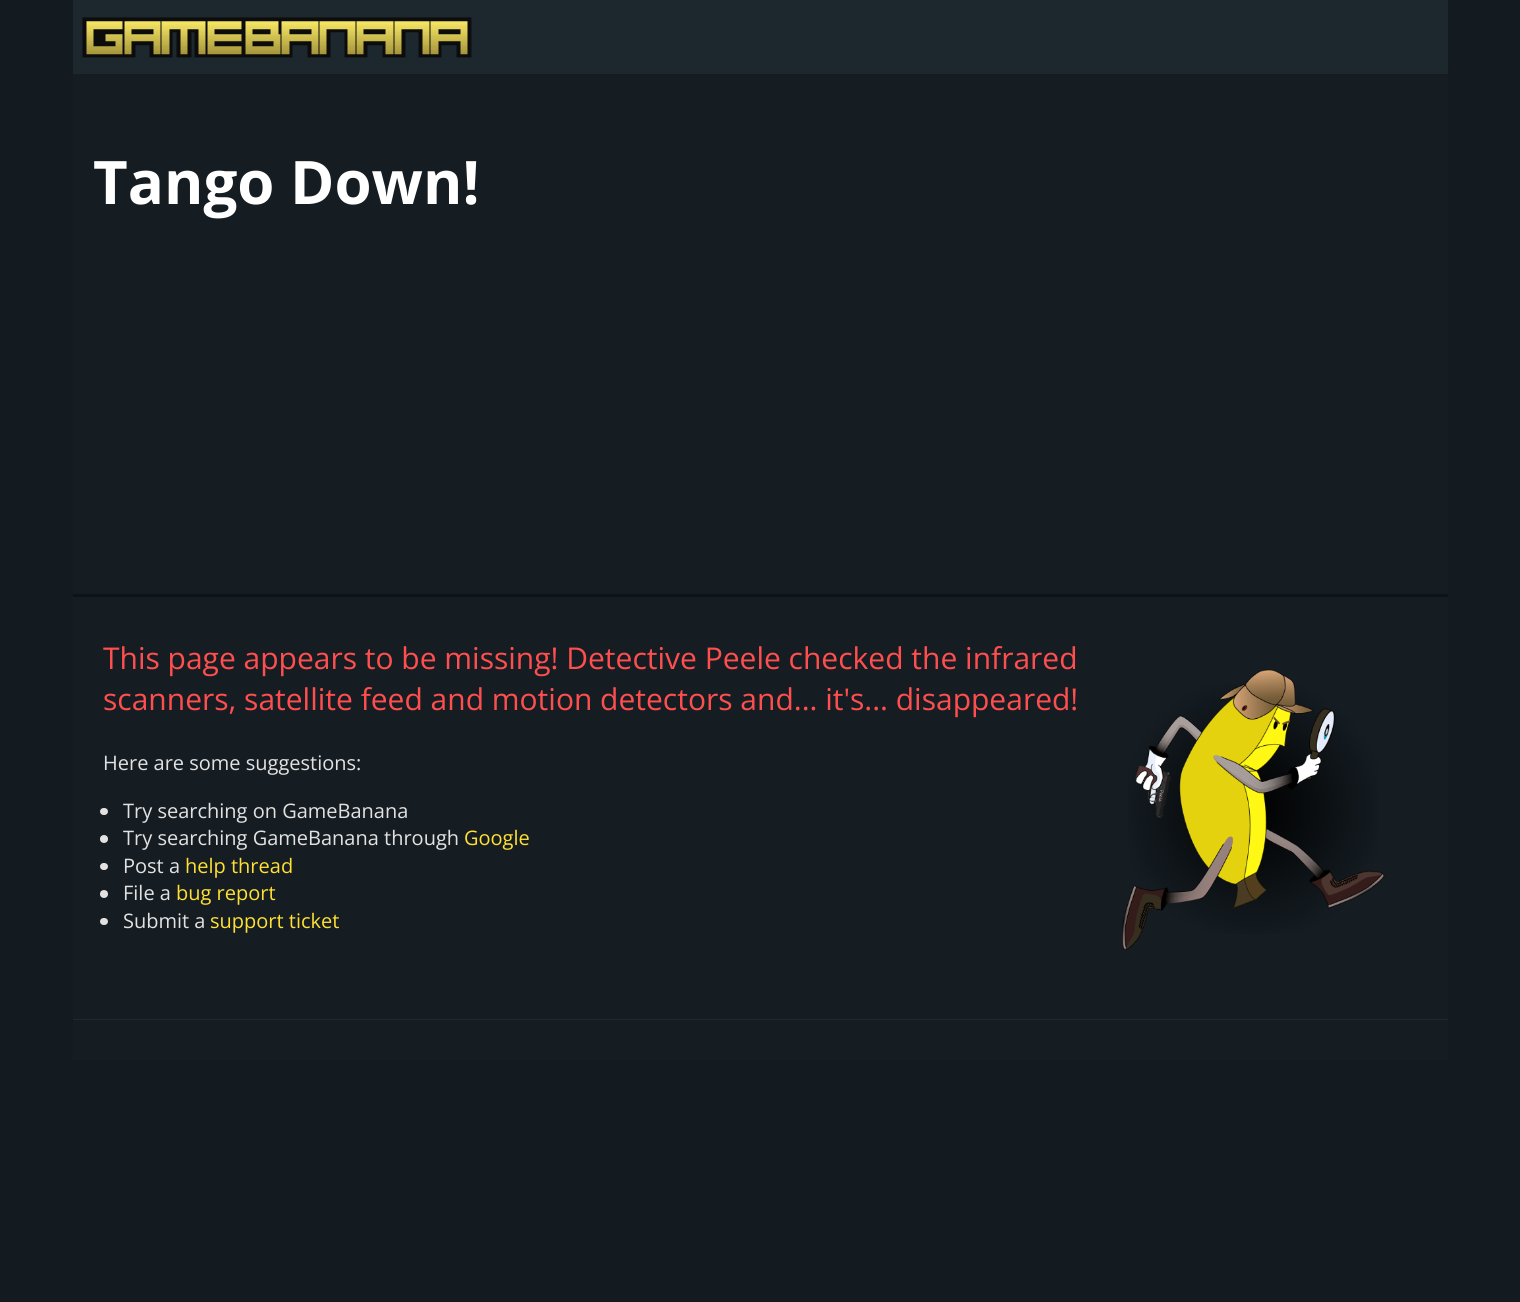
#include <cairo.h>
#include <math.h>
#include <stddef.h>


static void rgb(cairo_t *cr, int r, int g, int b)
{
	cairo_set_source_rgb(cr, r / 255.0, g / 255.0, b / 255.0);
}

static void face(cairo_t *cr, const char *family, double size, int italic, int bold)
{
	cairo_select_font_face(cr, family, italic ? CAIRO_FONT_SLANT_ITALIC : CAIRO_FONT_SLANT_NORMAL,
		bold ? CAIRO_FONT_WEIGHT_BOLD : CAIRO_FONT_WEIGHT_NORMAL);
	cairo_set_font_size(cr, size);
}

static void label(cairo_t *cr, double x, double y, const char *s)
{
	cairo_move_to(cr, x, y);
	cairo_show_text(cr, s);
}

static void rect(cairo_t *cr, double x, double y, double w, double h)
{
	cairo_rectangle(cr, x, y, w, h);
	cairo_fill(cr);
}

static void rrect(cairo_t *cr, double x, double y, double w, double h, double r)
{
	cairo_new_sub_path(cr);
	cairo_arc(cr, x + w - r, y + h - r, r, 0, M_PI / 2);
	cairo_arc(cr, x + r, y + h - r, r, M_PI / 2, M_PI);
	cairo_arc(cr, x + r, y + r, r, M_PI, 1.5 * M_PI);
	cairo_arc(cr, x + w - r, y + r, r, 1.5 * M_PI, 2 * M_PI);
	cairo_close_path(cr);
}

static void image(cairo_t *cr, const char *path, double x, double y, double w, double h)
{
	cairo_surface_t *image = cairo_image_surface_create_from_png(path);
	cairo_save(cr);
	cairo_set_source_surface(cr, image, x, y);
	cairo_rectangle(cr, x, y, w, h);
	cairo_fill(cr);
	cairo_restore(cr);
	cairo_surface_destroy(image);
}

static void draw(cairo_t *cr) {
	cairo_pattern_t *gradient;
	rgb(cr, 19, 26, 32);
	cairo_paint(cr);
	rgb(cr, 28, 39, 46);
	rect(cr, 73, 0, 1375, 74);
	image(cr, "image0.png", 82, 17, 390, 41);
	rgb(cr, 21, 29, 35);
	rect(cr, 73, 74, 1375, 945);
	face(cr, "Open Sans", 60, 0, 1);
	rgb(cr, 255, 255, 255);
	label(cr, 93, 204, "Tango Down!");
	rgb(cr, 14, 19, 23);
	rect(cr, 73, 594, 1375, 3);
	rgb(cr, 33, 40, 46);
	rect(cr, 73, 1019, 1375, 1);
	face(cr, "Open Sans", 30, 0, 0);
	rgb(cr, 255, 78, 78);
	label(cr, 103, 669, "This page appears to be missing! Detective Peele checked the infrared");
	label(cr, 103, 710, "scanners, satellite feed and motion detectors and... it's... disappeared!");
	face(cr, "Open Sans", 20, 0, 0);
	rgb(cr, 226, 226, 226);
	label(cr, 103, 770, "Here are some suggestions:");
	rrect(cr, 100, 808, 8, 7, 3.5);
	cairo_fill(cr);
	label(cr, 123, 818, "Try searching on GameBanana");
	cairo_new_path(cr);
	cairo_arc(cr, 104, 839, 4, 0, 2 * M_PI);
	cairo_fill(cr);
	label(cr, 123, 845, "Try searching GameBanana through");
	rgb(cr, 255, 224, 51);
	label(cr, 464, 845, "Google");
	rgb(cr, 226, 226, 226);
	rrect(cr, 100, 863, 8, 7, 3.5);
	cairo_fill(cr);
	label(cr, 123, 873, "Post a");
	rgb(cr, 255, 224, 51);
	label(cr, 185, 873, "help thread");
	rgb(cr, 226, 226, 226);
	cairo_new_path(cr);
	cairo_arc(cr, 104, 894, 4, 0, 2 * M_PI);
	cairo_fill(cr);
	label(cr, 123, 900, "File a");
	rgb(cr, 255, 224, 51);
	label(cr, 176, 900, "bug report");
	rgb(cr, 226, 226, 226);
	rrect(cr, 100, 918, 8, 7, 3.5);
	cairo_fill(cr);
	label(cr, 123, 928, "Submit a");
	rgb(cr, 255, 224, 51);
	label(cr, 210, 928, "support ticket");
	gradient = cairo_pattern_create_radial(1253, 809, 0, 1253, 809, 193);
	cairo_pattern_add_color_stop_rgba(gradient, 0, 0, 0, 0, 1);
	cairo_pattern_add_color_stop_rgba(gradient, 0.7, 0.082, 0.114, 0.137, 1);
	cairo_set_source(cr, gradient);
	cairo_pattern_destroy(gradient);
	rect(cr, 1128, 684, 250, 250);
	image(cr, "image1.png", 1122, 669, 263, 281);
	rgb(cr, 21, 29, 35);
	rect(cr, 73, 1020, 1375, 40);
}

int main(void) {
	cairo_surface_t *surface = cairo_image_surface_create(CAIRO_FORMAT_RGB24, 1520, 1302);
	cairo_t *cr = cairo_create(surface);
	cairo_font_options_t *options = cairo_font_options_create();
	cairo_font_options_set_hint_metrics(options, CAIRO_HINT_METRICS_OFF);
	cairo_font_options_set_hint_style(options, CAIRO_HINT_STYLE_NONE);
	cairo_set_font_options(cr, options);
	cairo_set_miter_limit(cr, 4);
	draw(cr);
	cairo_surface_write_to_png(surface, "render.png");
	cairo_font_options_destroy(options);
	cairo_destroy(cr);
	cairo_surface_destroy(surface);
	return 0;
}
